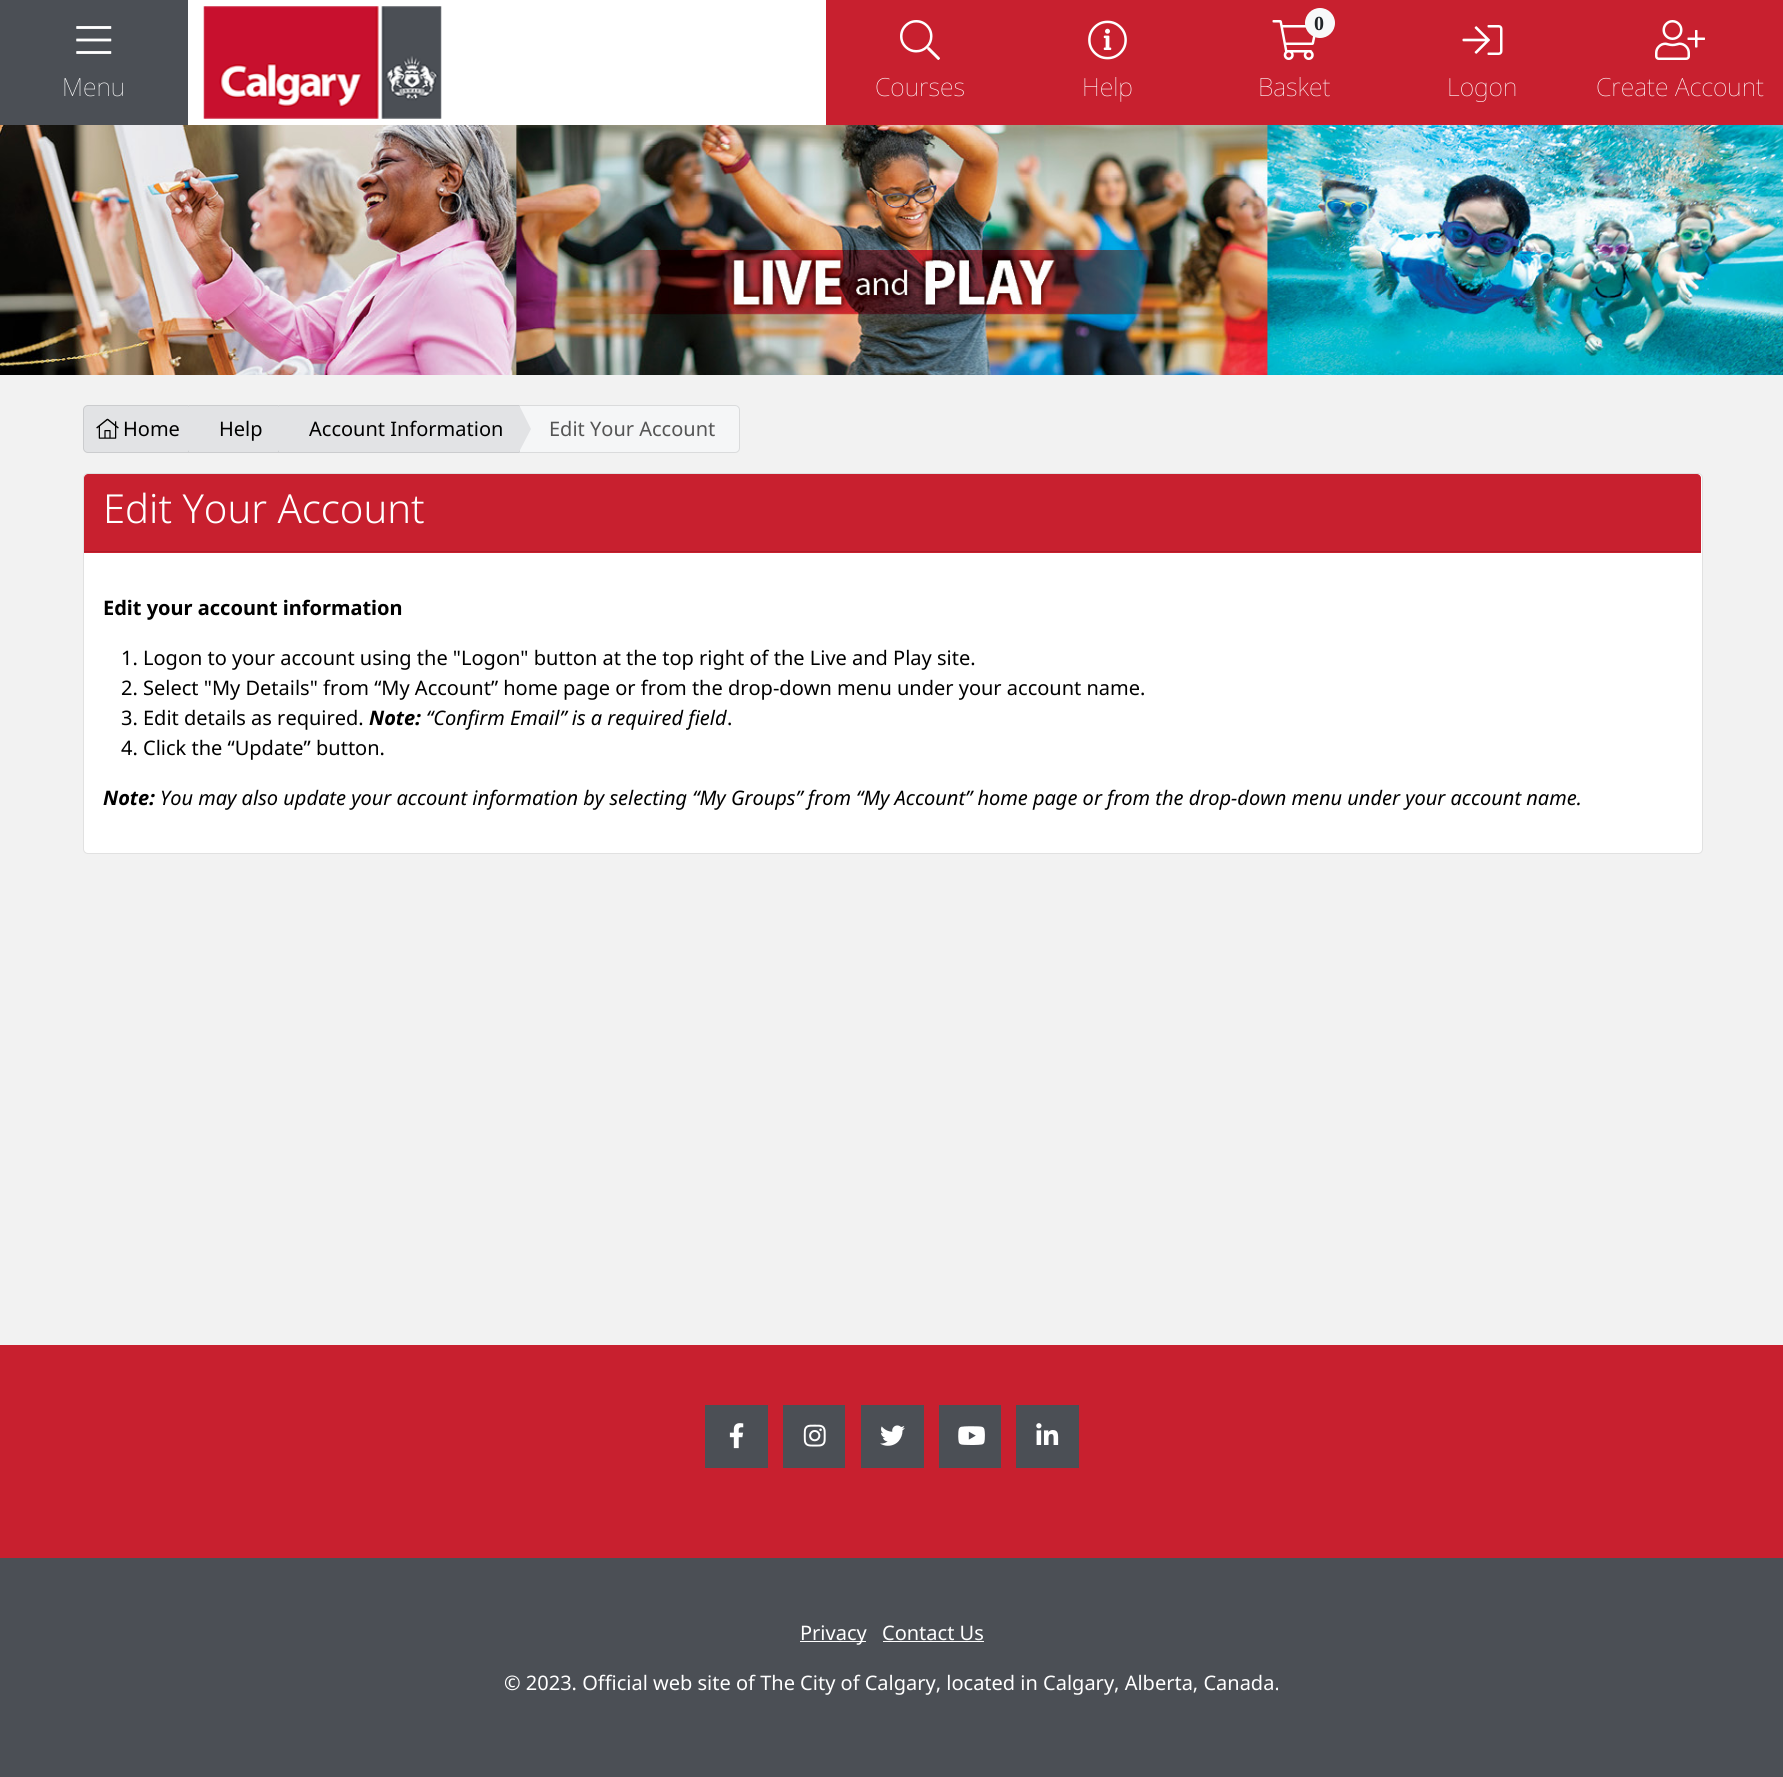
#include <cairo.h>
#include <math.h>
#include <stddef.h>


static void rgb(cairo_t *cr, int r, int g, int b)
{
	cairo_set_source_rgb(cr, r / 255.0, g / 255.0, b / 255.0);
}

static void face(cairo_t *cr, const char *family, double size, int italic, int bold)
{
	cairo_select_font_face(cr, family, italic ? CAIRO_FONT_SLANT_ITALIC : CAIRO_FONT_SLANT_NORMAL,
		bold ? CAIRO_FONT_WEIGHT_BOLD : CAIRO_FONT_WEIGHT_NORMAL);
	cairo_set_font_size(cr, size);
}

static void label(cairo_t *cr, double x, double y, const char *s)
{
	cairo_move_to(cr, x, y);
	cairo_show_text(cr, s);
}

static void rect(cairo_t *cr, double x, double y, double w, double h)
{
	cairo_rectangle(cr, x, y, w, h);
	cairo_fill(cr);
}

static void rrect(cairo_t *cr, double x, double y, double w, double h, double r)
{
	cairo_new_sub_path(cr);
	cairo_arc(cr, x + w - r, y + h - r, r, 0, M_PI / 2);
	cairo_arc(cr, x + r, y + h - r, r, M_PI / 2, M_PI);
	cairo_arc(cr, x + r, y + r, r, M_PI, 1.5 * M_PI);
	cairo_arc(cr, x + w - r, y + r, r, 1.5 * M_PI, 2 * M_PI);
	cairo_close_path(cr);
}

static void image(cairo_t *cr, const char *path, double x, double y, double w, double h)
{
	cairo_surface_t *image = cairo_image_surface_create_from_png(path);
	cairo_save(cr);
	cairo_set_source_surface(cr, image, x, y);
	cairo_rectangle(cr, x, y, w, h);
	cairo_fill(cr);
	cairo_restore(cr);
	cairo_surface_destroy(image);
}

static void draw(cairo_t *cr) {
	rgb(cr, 242, 242, 242);
	cairo_paint(cr);
	rgb(cr, 255, 255, 255);
	rect(cr, 188, 0, 638, 125);
	rgb(cr, 75, 79, 85);
	rect(cr, 0, 0, 188, 125);
	image(cr, "image0.png", 76, 26, 36, 28);
	face(cr, "Noto Sans Thin", 25, 0, 0);
	rgb(cr, 255, 255, 255);
	label(cr, 62, 96, "Menu");
	image(cr, "image1.png", 203, 6, 239, 113);
	rgb(cr, 200, 32, 47);
	rect(cr, 826, 0, 957, 125);
	image(cr, "image2.png", 900, 20, 40, 40);
	rgb(cr, 255, 255, 255);
	label(cr, 875, 96, "Courses");
	image(cr, "image3.png", 1088, 20, 39, 40);
	label(cr, 1082, 96, "Help");
	image(cr, "image4.png", 1272, 20, 44, 40);
	rgb(cr, 248, 249, 250);
	cairo_arc(cr, 1320, 23, 15, 0, 2 * M_PI);
	cairo_fill(cr);
	face(cr, "Liberation Serif", 20, 0, 1);
	rgb(cr, 33, 37, 41);
	label(cr, 1314, 30, "0");
	face(cr, "Noto Sans Thin", 25, 0, 0);
	rgb(cr, 255, 255, 255);
	label(cr, 1258, 96, "Basket");
	image(cr, "image5.png", 1462, 25, 41, 30);
	label(cr, 1447, 96, "Logon");
	image(cr, "image6.png", 1655, 20, 50, 40);
	label(cr, 1596, 96, "Create Account");
	image(cr, "image7.png", 0, 125, 1783, 250);
	rgb(cr, 226, 227, 229);
	cairo_new_path(cr);
	cairo_move_to(cr, 88, 405.5);
	cairo_line_to(cr, 188.5, 405.5);
	cairo_line_to(cr, 188.5, 452.5);
	cairo_line_to(cr, 88, 452.5);
	cairo_curve_to(cr, 85.5, 452.5, 83.5, 450.5, 83.5, 448);
	cairo_line_to(cr, 83.5, 410);
	cairo_curve_to(cr, 83.5, 407.5, 85.5, 405.5, 88, 405.5);
	cairo_close_path(cr);
	cairo_fill_preserve(cr);
	rgb(cr, 203, 204, 206);
	cairo_set_line_width(cr, 1);
	cairo_stroke(cr);
	image(cr, "image8.png", 96, 418, 23, 21);
	face(cr, "Noto Sans", 20, 0, 0);
	rgb(cr, 0, 0, 0);
	label(cr, 123, 436, "Home");
	rgb(cr, 226, 227, 229);
	cairo_rectangle(cr, 188.5, 405.5, 90, 47);
	cairo_fill_preserve(cr);
	rgb(cr, 203, 204, 206);
	cairo_stroke(cr);
	rgb(cr, 226, 227, 229);
	cairo_new_path(cr);
	cairo_move_to(cr, 188, 452);
	cairo_line_to(cr, 188, 405);
	cairo_line_to(cr, 200, 429);
	cairo_close_path(cr);
	cairo_fill(cr);
	rgb(cr, 0, 0, 0);
	label(cr, 219, 436, "Help");
	rgb(cr, 226, 227, 229);
	cairo_rectangle(cr, 278.5, 405.5, 241, 47);
	cairo_fill_preserve(cr);
	rgb(cr, 203, 204, 206);
	cairo_stroke(cr);
	rgb(cr, 226, 227, 229);
	cairo_new_path(cr);
	cairo_move_to(cr, 278, 452);
	cairo_line_to(cr, 278, 405);
	cairo_line_to(cr, 290, 429);
	cairo_close_path(cr);
	cairo_fill(cr);
	rgb(cr, 0, 0, 0);
	label(cr, 309, 436, "Account Information");
	cairo_set_source_rgba(cr, 0.973, 0.976, 0.98, 0.65);
	cairo_new_path(cr);
	cairo_move_to(cr, 519, 405);
	cairo_line_to(cr, 735, 405);
	cairo_curve_to(cr, 738, 405, 740, 407, 740, 410);
	cairo_line_to(cr, 740, 448);
	cairo_curve_to(cr, 740, 451, 738, 453, 735, 453);
	cairo_line_to(cr, 519, 453);
	cairo_close_path(cr);
	cairo_fill(cr);
	cairo_new_path(cr);
	cairo_move_to(cr, 519.5, 405.5);
	cairo_line_to(cr, 735, 405.5);
	cairo_curve_to(cr, 737.5, 405.5, 739.5, 407.5, 739.5, 410);
	cairo_line_to(cr, 739.5, 448);
	cairo_curve_to(cr, 739.5, 450.5, 737.5, 452.5, 735, 452.5);
	cairo_line_to(cr, 519.5, 452.5);
	cairo_close_path(cr);
	cairo_set_source_rgba(cr, 0.796, 0.8, 0.808, 0.65);
	cairo_stroke(cr);
	rgb(cr, 226, 227, 229);
	cairo_new_path(cr);
	cairo_move_to(cr, 519, 452);
	cairo_line_to(cr, 519, 405);
	cairo_line_to(cr, 531, 429);
	cairo_close_path(cr);
	cairo_fill(cr);
	rgb(cr, 85, 85, 85);
	label(cr, 549, 436, "Edit Your Account");
	rgb(cr, 255, 255, 255);
	rrect(cr, 83, 473, 1620, 381, 5);
	cairo_fill(cr);
	rrect(cr, 83.5, 473.5, 1619, 380, 4.5);
	cairo_set_source_rgba(cr, 0, 0, 0, 0.12);
	cairo_stroke(cr);
	rgb(cr, 200, 32, 47);
	cairo_new_path(cr);
	cairo_move_to(cr, 88, 474);
	cairo_line_to(cr, 1697, 474);
	cairo_curve_to(cr, 1699, 474, 1701, 476, 1701, 478);
	cairo_line_to(cr, 1701, 553);
	cairo_line_to(cr, 84, 553);
	cairo_line_to(cr, 84, 478);
	cairo_curve_to(cr, 84, 476, 86, 474, 88, 474);
	cairo_close_path(cr);
	cairo_fill(cr);
	rgb(cr, 175, 28, 41);
	rect(cr, 84, 551, 1617, 1);
	face(cr, "Noto Sans Light", 40, 0, 0);
	rgb(cr, 255, 255, 255);
	label(cr, 103, 523, "Edit Your Account");
	face(cr, "Noto Sans", 20, 0, 1);
	rgb(cr, 0, 0, 0);
	label(cr, 103, 615, "Edit your account information");
	face(cr, "Noto Sans", 20, 0, 0);
	label(cr, 121, 665, "1. Logon to your account using the \"Logon\" button at the top right of the Live and Play site.");
	label(cr, 121, 695, "2. Select \"My Details\" from “My Account” home page or from the drop-down menu under your account name.");
	label(cr, 121, 725, "3. Edit details as required.");
	face(cr, "Noto Sans", 20, 1, 1);
	label(cr, 369, 725, "Note:");
	face(cr, "Noto Sans", 20, 1, 0);
	label(cr, 426, 725, "“Confirm Email” is a required field");
	face(cr, "Noto Sans", 20, 0, 0);
	label(cr, 727, 725, ".");
	label(cr, 121, 755, "4. Click the “Update” button.");
	face(cr, "Noto Sans", 20, 1, 1);
	label(cr, 103, 805, "Note:");
	face(cr, "Noto Sans", 20, 1, 0);
	label(cr, 160, 805, "You may also update your account information by selecting “My Groups” from “My Account” home page or from the drop-down menu under your account name.");
	rgb(cr, 200, 32, 47);
	rect(cr, 0, 1345, 1783, 213);
	rgb(cr, 75, 79, 85);
	rect(cr, 705, 1405, 63, 63);
	image(cr, "image9.png", 729, 1423, 15, 26);
	rect(cr, 783, 1405, 62, 63);
	image(cr, "image10.png", 803, 1424, 23, 23);
	rect(cr, 861, 1405, 63, 63);
	image(cr, "image11.png", 880, 1425, 25, 21);
	rect(cr, 939, 1405, 62, 63);
	image(cr, "image12.png", 958, 1426, 27, 19);
	rect(cr, 1016, 1405, 63, 63);
	image(cr, "image13.png", 1036, 1423, 23, 22);
	rect(cr, 0, 1558, 1783, 219);
	rgb(cr, 255, 255, 255);
	rect(cr, 800, 1641, 66, 1);
	face(cr, "Noto Sans", 20, 0, 0);
	label(cr, 800, 1640, "Privacy");
	label(cr, 882, 1640, "Contact Us");
	rect(cr, 883, 1641, 101, 1);
	label(cr, 504, 1690, "© 2023. Official web site of The City of Calgary, located in Calgary, Alberta, Canada.");
}

int main(void) {
	cairo_surface_t *surface = cairo_image_surface_create(CAIRO_FORMAT_RGB24, 1783, 1777);
	cairo_t *cr = cairo_create(surface);
	cairo_font_options_t *options = cairo_font_options_create();
	cairo_font_options_set_hint_metrics(options, CAIRO_HINT_METRICS_OFF);
	cairo_font_options_set_hint_style(options, CAIRO_HINT_STYLE_NONE);
	cairo_set_font_options(cr, options);
	cairo_set_miter_limit(cr, 4);
	draw(cr);
	cairo_surface_write_to_png(surface, "render.png");
	cairo_font_options_destroy(options);
	cairo_destroy(cr);
	cairo_surface_destroy(surface);
	return 0;
}
